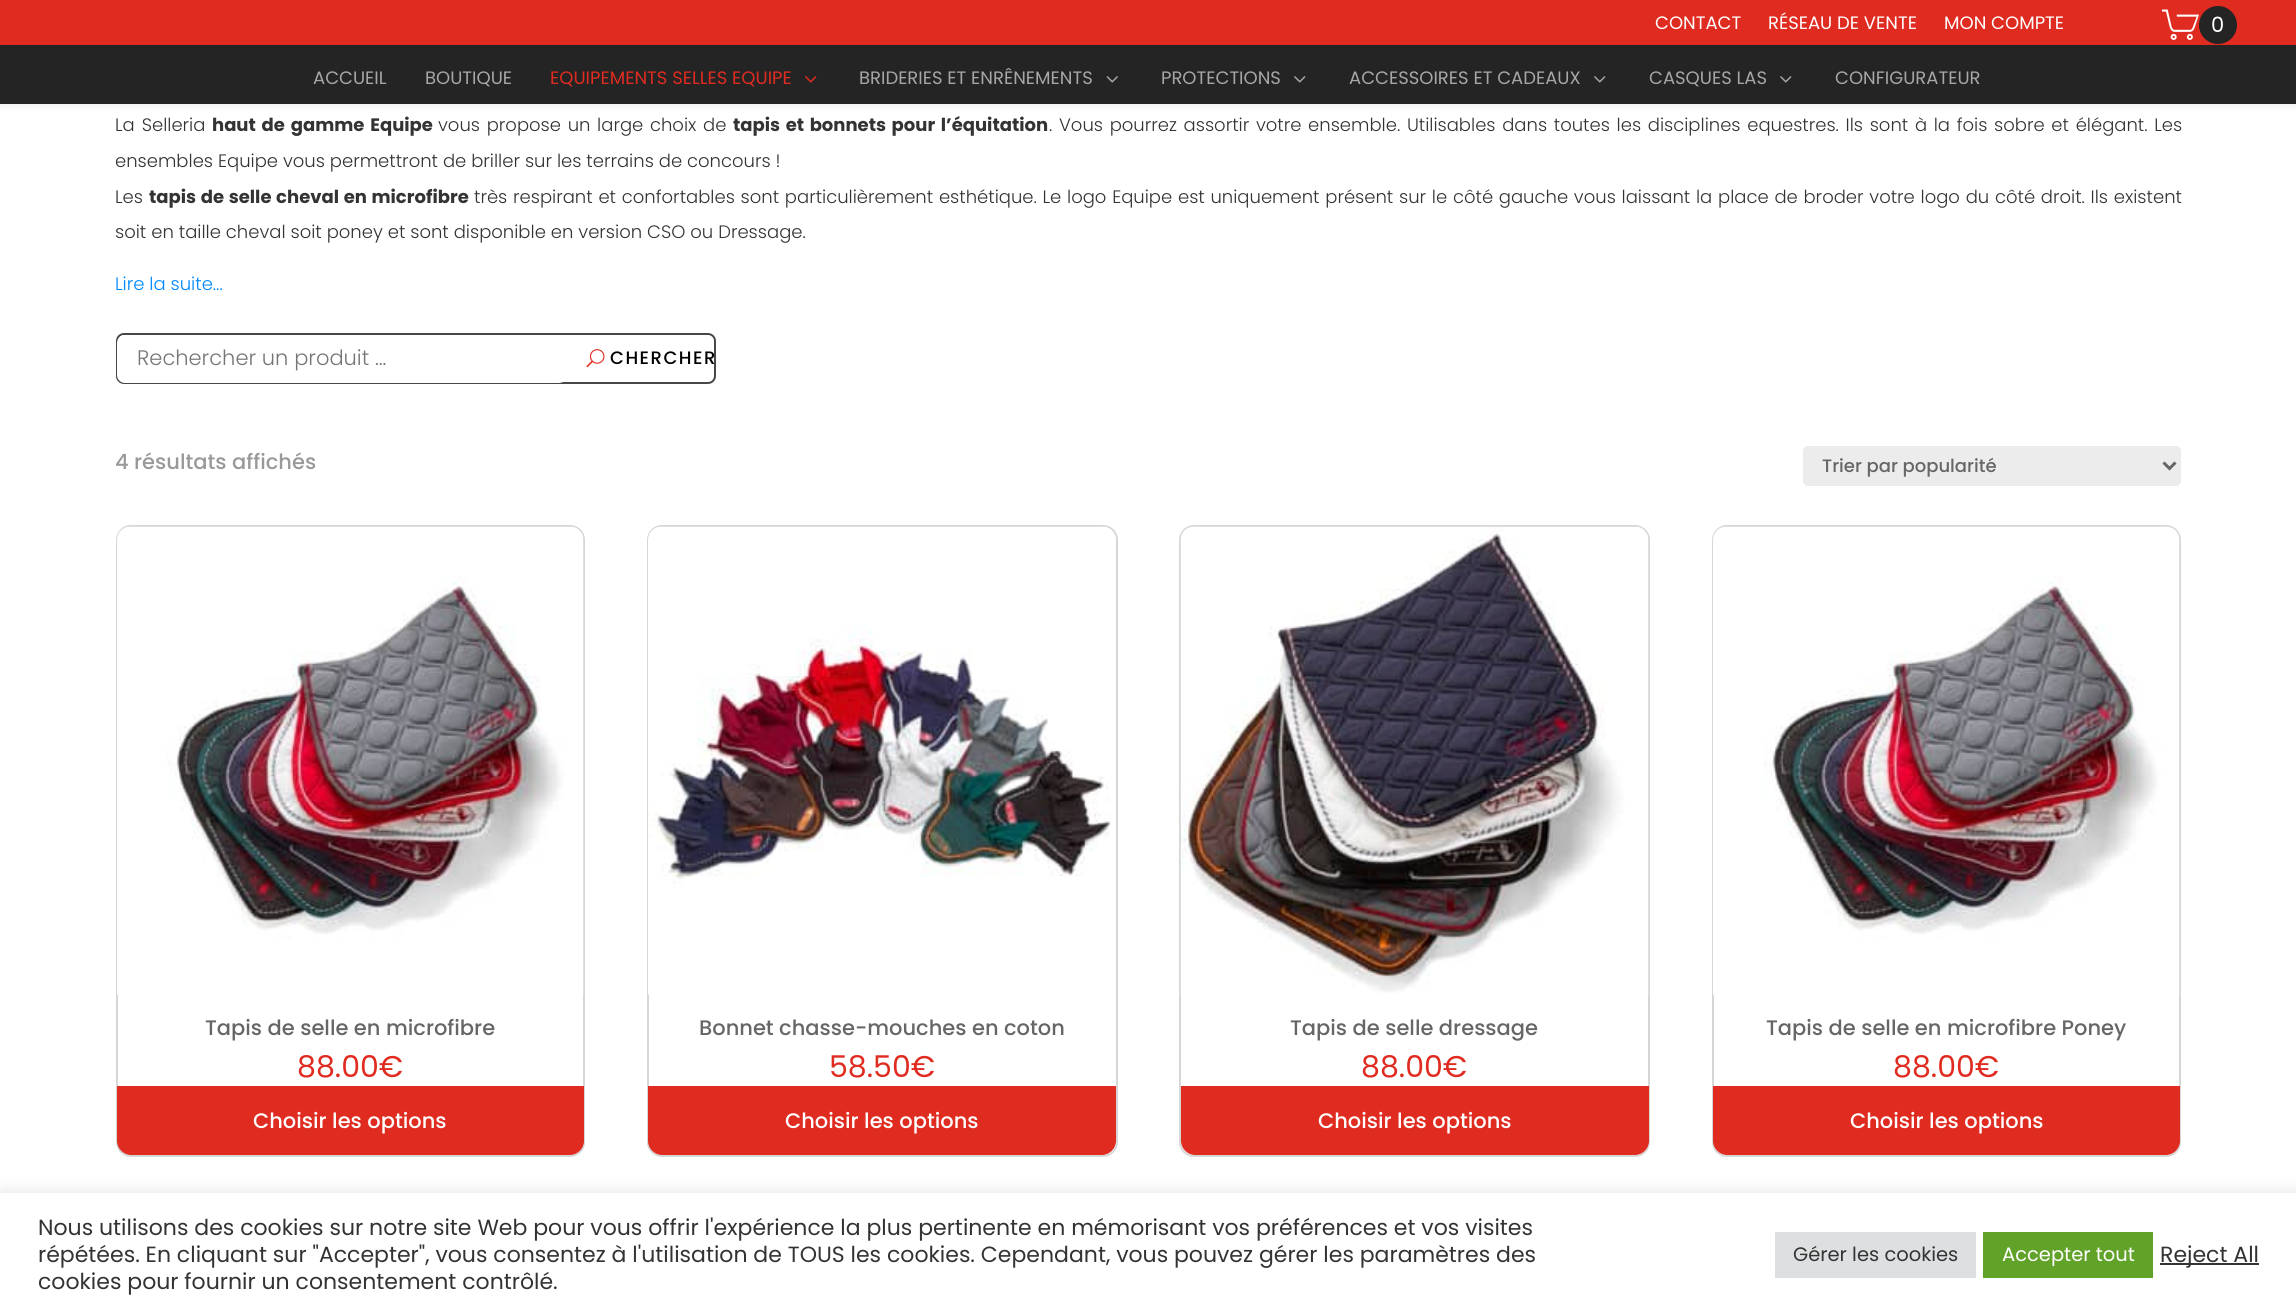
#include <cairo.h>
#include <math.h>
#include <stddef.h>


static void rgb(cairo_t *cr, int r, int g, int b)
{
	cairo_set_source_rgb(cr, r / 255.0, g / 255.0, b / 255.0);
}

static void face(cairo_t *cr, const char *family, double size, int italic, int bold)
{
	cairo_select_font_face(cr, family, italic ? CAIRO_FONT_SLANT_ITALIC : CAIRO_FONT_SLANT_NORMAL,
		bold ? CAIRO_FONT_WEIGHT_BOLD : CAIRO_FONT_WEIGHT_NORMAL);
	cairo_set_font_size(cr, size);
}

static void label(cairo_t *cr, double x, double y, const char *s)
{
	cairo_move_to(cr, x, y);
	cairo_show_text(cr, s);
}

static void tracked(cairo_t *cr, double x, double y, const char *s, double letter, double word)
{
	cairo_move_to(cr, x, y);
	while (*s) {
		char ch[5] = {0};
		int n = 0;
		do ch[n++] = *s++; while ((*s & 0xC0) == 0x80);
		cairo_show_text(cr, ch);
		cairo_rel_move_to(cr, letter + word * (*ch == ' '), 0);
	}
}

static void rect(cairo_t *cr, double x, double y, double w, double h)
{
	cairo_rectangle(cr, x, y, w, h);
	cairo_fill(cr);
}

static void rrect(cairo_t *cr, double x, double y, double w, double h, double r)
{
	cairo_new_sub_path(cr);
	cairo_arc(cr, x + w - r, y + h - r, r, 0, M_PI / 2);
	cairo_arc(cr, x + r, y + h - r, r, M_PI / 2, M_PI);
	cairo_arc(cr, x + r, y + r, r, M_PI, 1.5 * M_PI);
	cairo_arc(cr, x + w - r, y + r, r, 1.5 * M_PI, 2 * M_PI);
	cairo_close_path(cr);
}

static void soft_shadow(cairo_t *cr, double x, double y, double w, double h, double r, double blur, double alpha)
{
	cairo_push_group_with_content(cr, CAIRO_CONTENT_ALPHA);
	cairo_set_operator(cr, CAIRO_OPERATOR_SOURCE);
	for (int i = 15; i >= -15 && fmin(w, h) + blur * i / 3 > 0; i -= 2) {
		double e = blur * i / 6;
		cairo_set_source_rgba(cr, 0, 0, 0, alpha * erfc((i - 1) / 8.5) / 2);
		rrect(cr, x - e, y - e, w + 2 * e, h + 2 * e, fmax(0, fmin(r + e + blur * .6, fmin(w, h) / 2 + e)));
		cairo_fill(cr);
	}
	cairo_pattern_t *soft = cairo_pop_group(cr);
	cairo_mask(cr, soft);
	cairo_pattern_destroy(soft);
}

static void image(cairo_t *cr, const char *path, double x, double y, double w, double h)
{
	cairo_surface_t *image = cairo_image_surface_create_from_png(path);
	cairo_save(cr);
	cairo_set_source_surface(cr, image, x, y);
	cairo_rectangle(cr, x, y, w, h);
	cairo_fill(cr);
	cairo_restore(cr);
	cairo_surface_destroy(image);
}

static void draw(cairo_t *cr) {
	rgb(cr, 255, 255, 255);
	cairo_paint(cr);
	rgb(cr, 0, 0, 0);
	soft_shadow(cr, 0, 45, 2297, 59, 0, 5, 0.1);
	rgb(cr, 224, 43, 32);
	rect(cr, 0, 0, 2296, 45);
	face(cr, "Poppins", 18, 0, 0);
	rgb(cr, 255, 255, 255);
	label(cr, 1655, 29, "CONTACT");
	label(cr, 1768, 29, "RÉSEAU DE VENTE");
	label(cr, 1944, 29, "MON COMPTE");
	image(cr, "image0.png", 2162, 9, 37, 31);
	rgb(cr, 36, 36, 36);
	cairo_arc(cr, 2218, 25, 19, 0, 2 * M_PI);
	cairo_fill(cr);
	face(cr, "Poppins", 21, 0, 0);
	rgb(cr, 255, 255, 255);
	label(cr, 2211, 32, "0");
	rgb(cr, 36, 36, 36);
	rect(cr, 0, 45, 2296, 59);
	face(cr, "Poppins", 18, 0, 0);
	rgb(cr, 167, 167, 167);
	label(cr, 313, 84, "ACCUEIL");
	label(cr, 425, 84, "BOUTIQUE");
	rgb(cr, 224, 43, 32);
	label(cr, 550, 84, "EQUIPEMENTS SELLES EQUIPE");
	image(cr, "image1.png", 805, 76, 12, 7);
	rgb(cr, 167, 167, 167);
	label(cr, 859, 84, "BRIDERIES ET ENRÊNEMENTS");
	image(cr, "image2.png", 1106, 76, 12, 7);
	label(cr, 1161, 84, "PROTECTIONS");
	image(cr, "image3.png", 1294, 76, 12, 7);
	label(cr, 1349, 84, "ACCESSOIRES ET CADEAUX");
	image(cr, "image3.png", 1594, 76, 12, 7);
	label(cr, 1649, 84, "CASQUES LAS");
	image(cr, "image3.png", 1780, 76, 12, 7);
	label(cr, 1835, 84, "CONFIGURATEUR");
	face(cr, "Poppins Light", 18, 0, 0);
	rgb(cr, 51, 51, 51);
	tracked(cr, 115, 131, "La Selleria", 0, 2);
	face(cr, "Poppins", 18, 0, 1);
	tracked(cr, 212, 131, "haut de gamme Equipe", 0, 2);
	face(cr, "Poppins Light", 18, 0, 0);
	tracked(cr, 438, 131, "vous propose un large choix de", 0, 1.75);
	face(cr, "Poppins", 18, 0, 1);
	tracked(cr, 733, 131, "tapis et bonnets pour l’équitation", 0, 1.75);
	face(cr, "Poppins Light", 18, 0, 0);
	tracked(cr, 1049, 131, ". Vous pourrez assortir votre ensemble. Utilisables dans toutes les disciplines equestres. Ils sont à la fois sobre et élégant. Les", 0, 1.75);
	cairo_save(cr);
	cairo_rectangle(cr, 116, 107, 2065, 150);
	cairo_clip(cr);
	label(cr, 115, 167, "ensembles Equipe vous permettront de briller sur les terrains de concours !");
	cairo_restore(cr);
	label(cr, 115, 203, "Les");
	face(cr, "Poppins", 18, 0, 1);
	tracked(cr, 149, 203, "tapis de selle cheval en microfibre", 0, 0.8);
	face(cr, "Poppins Light", 18, 0, 0);
	tracked(cr, 474, 203, "très respirant et confortables sont particulièrement esthétique. Le logo Equipe est uniquement présent sur le côté gauche vous laissant la place de broder votre logo du côté droit. Ils existent", 0, 0.8);
	label(cr, 115, 238, "soit en taille cheval soit poney et sont disponible en version CSO ou Dressage.");
	rgb(cr, 0, 136, 255);
	label(cr, 115, 290, "Lire la suite...");
	rrect(cr, 117, 334, 598, 49, 7);
	rgb(cr, 71, 71, 71);
	cairo_stroke(cr);
	rgb(cr, 255, 255, 255);
	rrect(cr, 117, 335, 450, 48, 8);
	cairo_fill(cr);
	face(cr, "Poppins Light", 21, 0, 0);
	rgb(cr, 117, 117, 117);
	label(cr, 137, 365, "Rechercher un produit ...");
	image(cr, "image4.png", 586, 349, 19, 19);
	face(cr, "Poppins Medium", 18, 0, 0);
	rgb(cr, 0, 0, 0);
	tracked(cr, 610, 364, "CHERCHER", 1.5, 0);
	face(cr, "Poppins Medium", 21, 0, 0);
	rgb(cr, 153, 153, 153);
	label(cr, 115, 469, "4 résultats affichés");
	rgb(cr, 236, 236, 236);
	rrect(cr, 1803, 446, 378, 40, 5);
	cairo_fill(cr);
	cairo_new_path(cr);
	cairo_move_to(cr, 2163.5, 462.5);
	cairo_line_to(cr, 2169.5, 468.5);
	cairo_line_to(cr, 2175.5, 462.5);
	rgb(cr, 102, 102, 102);
	cairo_set_line_width(cr, 3);
	cairo_stroke(cr);
	face(cr, "Poppins Medium", 18, 0, 0);
	label(cr, 1822, 472, "Trier par popularité");
	rrect(cr, 117, 526, 467, 630, 14);
	rgb(cr, 214, 214, 214);
	cairo_set_line_width(cr, 2);
	cairo_stroke(cr);
	image(cr, "image5.png", 117, 526, 467, 469);
	face(cr, "Poppins Medium", 21, 0, 0);
	rgb(cr, 102, 102, 102);
	label(cr, 205, 1035, "Tapis de selle en microfibre");
	face(cr, "Poppins", 30, 0, 0);
	rgb(cr, 224, 43, 32);
	label(cr, 297, 1077, "88.00€");
	cairo_new_path(cr);
	cairo_move_to(cr, 117, 1086);
	cairo_line_to(cr, 584, 1086);
	cairo_line_to(cr, 584, 1141);
	cairo_curve_to(cr, 584, 1148.5, 577.5, 1155, 570, 1155);
	cairo_line_to(cr, 131, 1155);
	cairo_curve_to(cr, 123.5, 1155, 117, 1148.5, 117, 1141);
	cairo_close_path(cr);
	cairo_fill(cr);
	face(cr, "Poppins Medium", 21, 0, 0);
	rgb(cr, 255, 255, 255);
	label(cr, 253, 1128, "Choisir les options");
	rrect(cr, 648, 526, 469, 630, 14);
	rgb(cr, 214, 214, 214);
	cairo_stroke(cr);
	image(cr, "image6.png", 648, 526, 468, 469);
	rgb(cr, 102, 102, 102);
	label(cr, 699, 1035, "Bonnet chasse-mouches en coton");
	face(cr, "Poppins", 30, 0, 0);
	rgb(cr, 224, 43, 32);
	label(cr, 829, 1077, "58.50€");
	cairo_new_path(cr);
	cairo_move_to(cr, 648, 1086);
	cairo_line_to(cr, 1116, 1086);
	cairo_line_to(cr, 1116, 1141);
	cairo_curve_to(cr, 1116, 1148.5, 1109.5, 1155, 1102, 1155);
	cairo_line_to(cr, 662, 1155);
	cairo_curve_to(cr, 654.5, 1155, 648, 1148.5, 648, 1141);
	cairo_close_path(cr);
	cairo_fill(cr);
	face(cr, "Poppins Medium", 21, 0, 0);
	rgb(cr, 255, 255, 255);
	label(cr, 785, 1128, "Choisir les options");
	rrect(cr, 1180, 526, 469, 630, 14);
	rgb(cr, 214, 214, 214);
	cairo_stroke(cr);
	image(cr, "image7.png", 1180, 526, 469, 469);
	rgb(cr, 102, 102, 102);
	label(cr, 1290, 1035, "Tapis de selle dressage");
	face(cr, "Poppins", 30, 0, 0);
	rgb(cr, 224, 43, 32);
	label(cr, 1361, 1077, "88.00€");
	cairo_new_path(cr);
	cairo_move_to(cr, 1181, 1086);
	cairo_line_to(cr, 1649, 1086);
	cairo_line_to(cr, 1649, 1141);
	cairo_curve_to(cr, 1649, 1148.5, 1642.5, 1155, 1635, 1155);
	cairo_line_to(cr, 1195, 1155);
	cairo_curve_to(cr, 1187.5, 1155, 1181, 1148.5, 1181, 1141);
	cairo_close_path(cr);
	cairo_fill(cr);
	face(cr, "Poppins Medium", 21, 0, 0);
	rgb(cr, 255, 255, 255);
	label(cr, 1318, 1128, "Choisir les options");
	rrect(cr, 1713, 526, 467, 630, 14);
	rgb(cr, 214, 214, 214);
	cairo_stroke(cr);
	image(cr, "image5.png", 1713, 526, 467, 469);
	rgb(cr, 102, 102, 102);
	label(cr, 1766, 1035, "Tapis de selle en microfibre Poney");
	face(cr, "Poppins", 30, 0, 0);
	rgb(cr, 224, 43, 32);
	label(cr, 1893, 1077, "88.00€");
	cairo_new_path(cr);
	cairo_move_to(cr, 1713, 1086);
	cairo_line_to(cr, 2180, 1086);
	cairo_line_to(cr, 2180, 1141);
	cairo_curve_to(cr, 2180, 1148.5, 2173.5, 1155, 2166, 1155);
	cairo_line_to(cr, 1727, 1155);
	cairo_curve_to(cr, 1719.5, 1155, 1713, 1148.5, 1713, 1141);
	cairo_close_path(cr);
	cairo_fill(cr);
	face(cr, "Poppins Medium", 21, 0, 0);
	rgb(cr, 255, 255, 255);
	label(cr, 1850, 1128, "Choisir les options");
	rgb(cr, 172, 171, 171);
	soft_shadow(cr, 0, 1191, 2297, 123, 0, 7.5, 0.3);
	rgb(cr, 255, 255, 255);
	rect(cr, 0, 1193, 2296, 122);
	face(cr, "Poppins", 22, 0, 0);
	rgb(cr, 51, 51, 51);
	label(cr, 38, 1235, "Nous utilisons des cookies sur notre site Web pour vous offrir l'expérience la plus pertinente en mémorisant vos préférences et vos visites");
	label(cr, 38, 1262, "répétées. En cliquant sur \"Accepter\", vous consentez à l'utilisation de TOUS les cookies. Cependant, vous pouvez gérer les paramètres des");
	label(cr, 38, 1289, "cookies pour fournir un consentement contrôlé.");
	rgb(cr, 222, 223, 224);
	rect(cr, 1775, 1232, 201, 46);
	face(cr, "Poppins", 19.5, 0, 0);
	rgb(cr, 51, 51, 51);
	label(cr, 1793, 1261, "Gérer les cookies");
	rgb(cr, 97, 162, 41);
	rect(cr, 1983, 1232, 170, 46);
	rgb(cr, 255, 255, 255);
	label(cr, 2002, 1261, "Accepter tout");
	rgb(cr, 51, 51, 51);
	rect(cr, 2160, 1263, 99, 2);
	face(cr, "Poppins", 22, 0, 0);
	label(cr, 2160, 1262, "Reject All");
}

int main(void) {
	cairo_surface_t *surface = cairo_image_surface_create(CAIRO_FORMAT_RGB24, 2296, 1315);
	cairo_t *cr = cairo_create(surface);
	cairo_font_options_t *options = cairo_font_options_create();
	cairo_font_options_set_hint_metrics(options, CAIRO_HINT_METRICS_OFF);
	cairo_font_options_set_hint_style(options, CAIRO_HINT_STYLE_NONE);
	cairo_set_font_options(cr, options);
	cairo_set_miter_limit(cr, 4);
	draw(cr);
	cairo_surface_write_to_png(surface, "render.png");
	cairo_font_options_destroy(options);
	cairo_destroy(cr);
	cairo_surface_destroy(surface);
	return 0;
}
